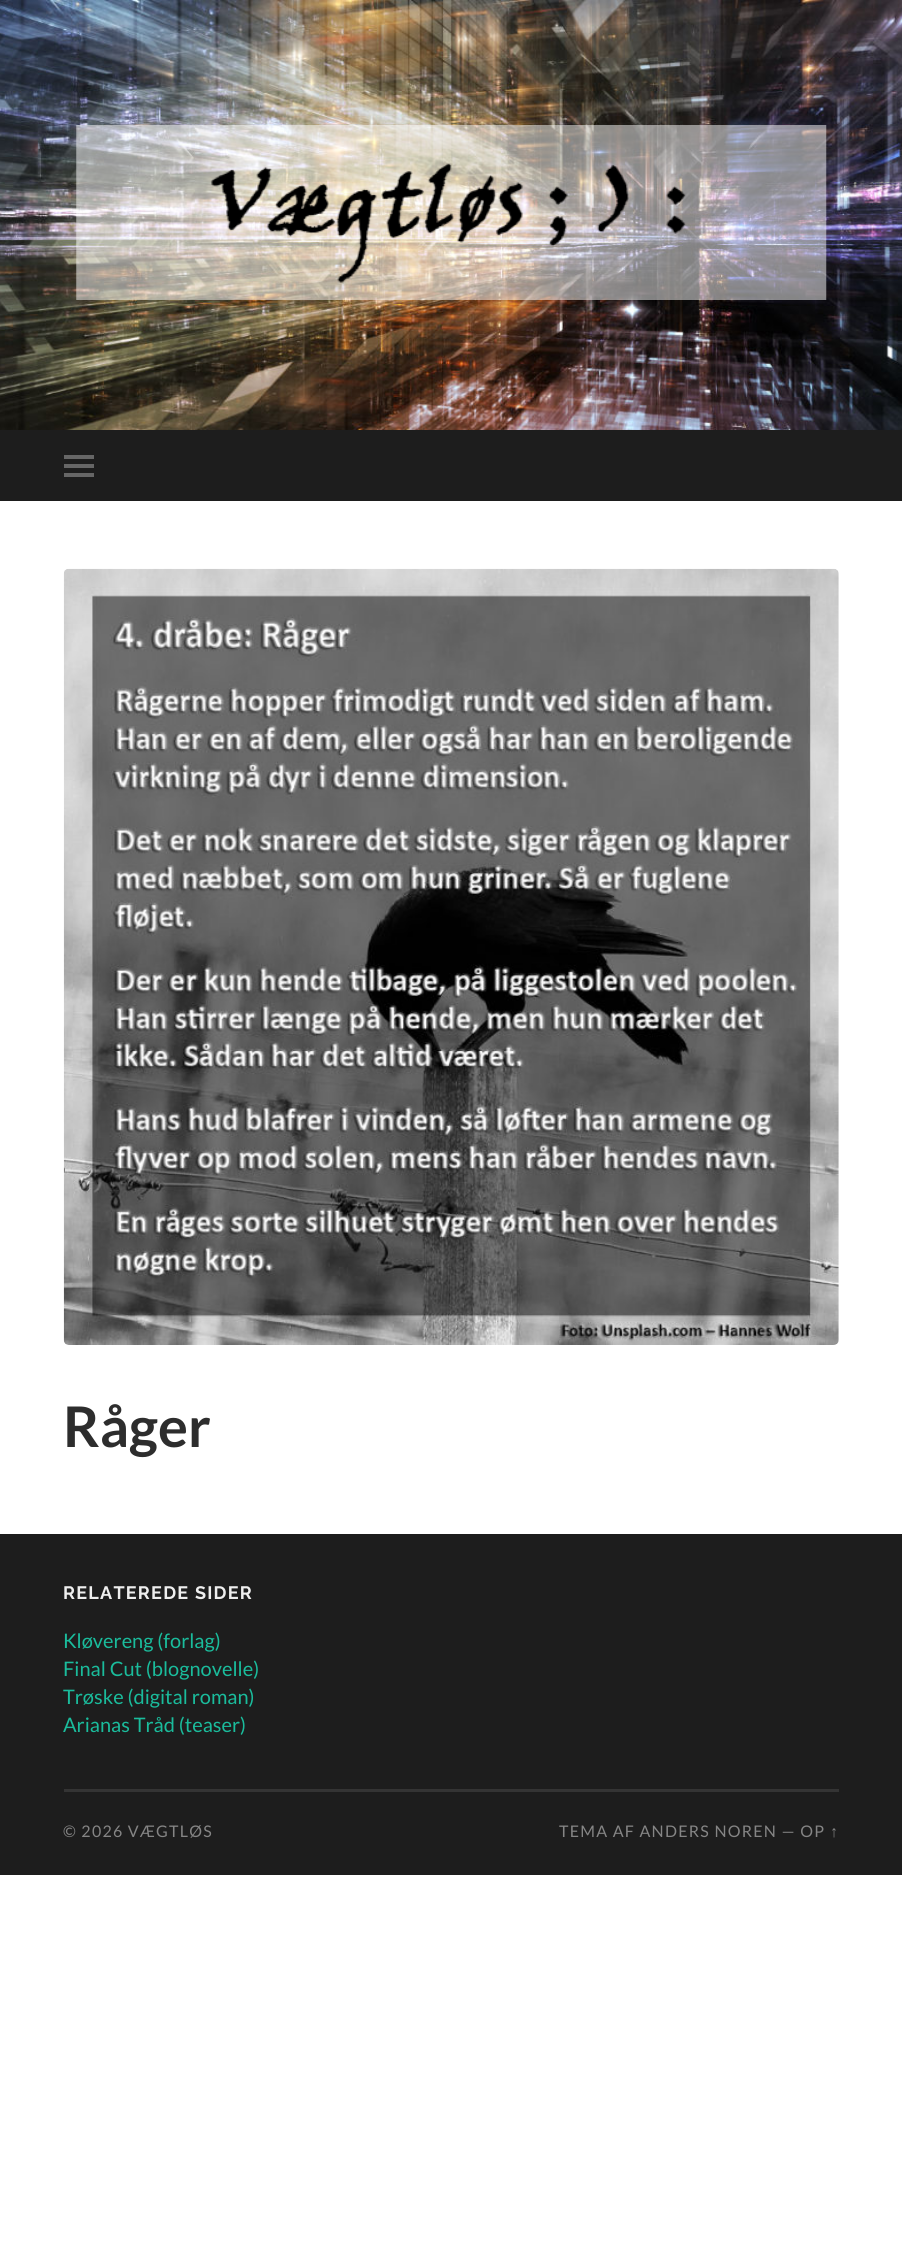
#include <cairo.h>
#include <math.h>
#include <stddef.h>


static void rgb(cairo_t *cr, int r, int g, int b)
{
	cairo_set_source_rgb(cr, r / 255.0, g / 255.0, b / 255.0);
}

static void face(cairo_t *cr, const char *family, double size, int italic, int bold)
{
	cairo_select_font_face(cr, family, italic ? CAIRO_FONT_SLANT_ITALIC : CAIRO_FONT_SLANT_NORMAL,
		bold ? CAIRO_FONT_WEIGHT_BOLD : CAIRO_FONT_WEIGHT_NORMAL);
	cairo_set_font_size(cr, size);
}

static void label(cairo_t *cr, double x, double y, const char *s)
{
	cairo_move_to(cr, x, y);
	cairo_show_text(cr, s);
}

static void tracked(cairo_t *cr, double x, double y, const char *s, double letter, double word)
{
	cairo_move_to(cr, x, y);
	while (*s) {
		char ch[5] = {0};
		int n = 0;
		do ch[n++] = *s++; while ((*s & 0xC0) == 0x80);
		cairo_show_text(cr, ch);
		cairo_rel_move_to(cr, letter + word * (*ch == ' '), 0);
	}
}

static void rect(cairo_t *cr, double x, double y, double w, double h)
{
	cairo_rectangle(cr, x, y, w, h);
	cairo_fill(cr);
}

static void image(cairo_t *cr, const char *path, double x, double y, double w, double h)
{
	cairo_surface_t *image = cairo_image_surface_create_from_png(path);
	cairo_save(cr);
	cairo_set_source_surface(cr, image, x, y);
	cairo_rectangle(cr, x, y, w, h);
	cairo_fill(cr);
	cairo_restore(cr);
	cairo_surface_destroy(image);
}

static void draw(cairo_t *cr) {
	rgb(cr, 255, 255, 255);
	cairo_paint(cr);
	image(cr, "image0.png", 0, 0, 902, 430);
	image(cr, "image1.png", 76, 125, 751, 175);
	rgb(cr, 29, 29, 29);
	rect(cr, 0, 430, 902, 71);
	rgb(cr, 102, 102, 102);
	rect(cr, 64, 455, 30, 4);
	rect(cr, 64, 464, 30, 4);
	rect(cr, 64, 473, 30, 4);
	image(cr, "image2.png", 63, 568, 776, 777);
	face(cr, "Lato", 56, 0, 1);
	rgb(cr, 45, 45, 45);
	label(cr, 63, 1447, "Råger");
	rgb(cr, 29, 29, 29);
	rect(cr, 0, 1534, 902, 341);
	face(cr, "Raleway", 18, 0, 1);
	rgb(cr, 238, 238, 238);
	tracked(cr, 63, 1599, "RELATEREDE SIDER", 1.25, 0);
	face(cr, "Lato", 20, 0, 0);
	rgb(cr, 26, 188, 156);
	label(cr, 63, 1648, "Kløvereng (forlag)");
	label(cr, 63, 1676, "Final Cut (blognovelle)");
	label(cr, 63, 1704, "Trøske (digital roman)");
	label(cr, 63, 1732, "Arianas Tråd (teaser)");
	rgb(cr, 52, 52, 52);
	rect(cr, 64, 1789, 775, 3);
	face(cr, "Lato", 16, 0, 0);
	rgb(cr, 133, 133, 133);
	tracked(cr, 63, 1837, "© 2026 VÆGTLØS", 1.25, 0);
	tracked(cr, 559, 1837, "TEMA AF ANDERS NOREN — OP", 1.25, 0);
	face(cr, "Liberation Sans", 16, 0, 0);
	tracked(cr, 830, 1837, "↑", 1.25, 0);
}

int main(void) {
	cairo_surface_t *surface = cairo_image_surface_create(CAIRO_FORMAT_RGB24, 902, 2261);
	cairo_t *cr = cairo_create(surface);
	cairo_font_options_t *options = cairo_font_options_create();
	cairo_font_options_set_hint_metrics(options, CAIRO_HINT_METRICS_OFF);
	cairo_font_options_set_hint_style(options, CAIRO_HINT_STYLE_NONE);
	cairo_set_font_options(cr, options);
	cairo_set_miter_limit(cr, 4);
	draw(cr);
	cairo_surface_write_to_png(surface, "render.png");
	cairo_font_options_destroy(options);
	cairo_destroy(cr);
	cairo_surface_destroy(surface);
	return 0;
}
